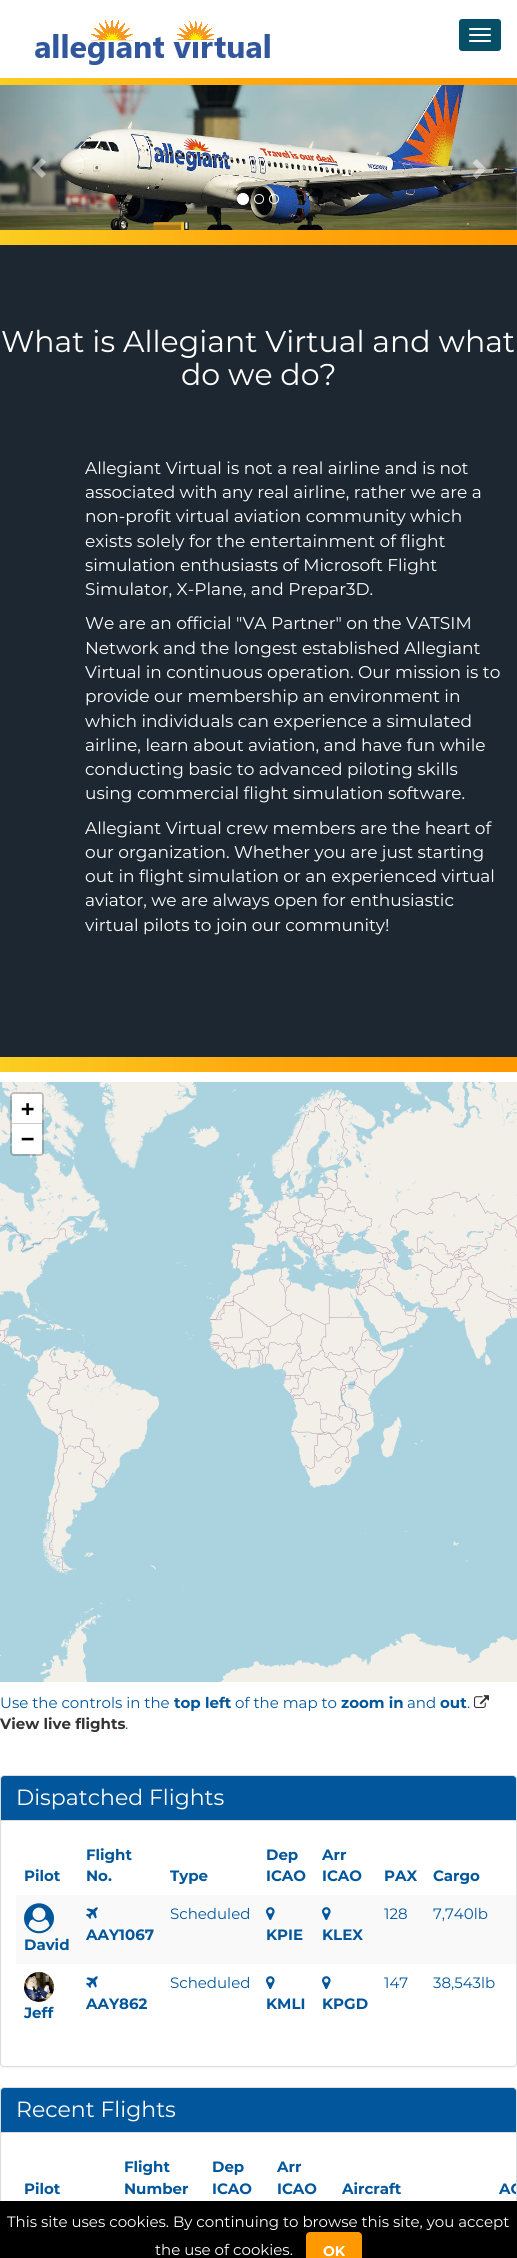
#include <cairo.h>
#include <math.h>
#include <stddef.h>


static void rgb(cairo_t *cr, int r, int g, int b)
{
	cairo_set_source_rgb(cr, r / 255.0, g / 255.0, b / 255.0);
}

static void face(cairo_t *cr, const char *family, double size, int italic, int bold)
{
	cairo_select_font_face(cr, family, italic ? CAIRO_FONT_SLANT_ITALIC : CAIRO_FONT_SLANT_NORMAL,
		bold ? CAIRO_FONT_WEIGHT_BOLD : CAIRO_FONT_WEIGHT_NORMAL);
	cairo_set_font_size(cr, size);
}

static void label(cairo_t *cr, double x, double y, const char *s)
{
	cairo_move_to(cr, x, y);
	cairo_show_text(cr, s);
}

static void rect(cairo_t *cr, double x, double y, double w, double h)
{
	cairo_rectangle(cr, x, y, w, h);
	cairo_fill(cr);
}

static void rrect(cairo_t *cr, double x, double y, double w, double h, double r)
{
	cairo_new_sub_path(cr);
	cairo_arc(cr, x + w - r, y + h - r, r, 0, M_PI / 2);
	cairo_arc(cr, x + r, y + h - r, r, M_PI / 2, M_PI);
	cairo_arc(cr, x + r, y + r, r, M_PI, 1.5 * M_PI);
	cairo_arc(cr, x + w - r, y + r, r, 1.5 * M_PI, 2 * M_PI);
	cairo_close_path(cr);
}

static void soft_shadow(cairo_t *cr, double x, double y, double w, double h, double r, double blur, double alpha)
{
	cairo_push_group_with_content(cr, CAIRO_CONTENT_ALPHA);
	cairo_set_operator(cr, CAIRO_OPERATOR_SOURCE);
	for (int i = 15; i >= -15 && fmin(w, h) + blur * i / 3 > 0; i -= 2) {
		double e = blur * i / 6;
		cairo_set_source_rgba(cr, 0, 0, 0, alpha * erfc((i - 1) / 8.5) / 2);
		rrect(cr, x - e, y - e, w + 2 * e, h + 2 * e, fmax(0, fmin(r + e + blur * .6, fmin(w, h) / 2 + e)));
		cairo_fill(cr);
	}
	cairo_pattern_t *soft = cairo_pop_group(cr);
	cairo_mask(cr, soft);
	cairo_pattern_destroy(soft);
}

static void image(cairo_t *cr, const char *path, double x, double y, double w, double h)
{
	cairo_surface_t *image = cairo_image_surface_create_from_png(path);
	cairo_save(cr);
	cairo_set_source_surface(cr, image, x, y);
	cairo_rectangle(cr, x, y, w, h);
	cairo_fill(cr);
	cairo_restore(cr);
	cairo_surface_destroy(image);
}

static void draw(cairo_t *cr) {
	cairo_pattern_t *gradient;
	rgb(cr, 255, 255, 255);
	cairo_paint(cr);
	image(cr, "image0.png", 35, 20, 235, 45);
	rgb(cr, 7, 79, 102);
	rrect(cr, 459, 19, 42, 32, 3);
	cairo_fill(cr);
	rgb(cr, 255, 255, 255);
	rrect(cr, 469, 28, 22, 2, 1);
	cairo_fill(cr);
	rrect(cr, 469, 34, 22, 2, 1);
	cairo_fill(cr);
	rrect(cr, 469, 40, 22, 2, 1);
	cairo_fill(cr);
	gradient = cairo_pattern_create_linear(0, 78, 517, 77);
	cairo_pattern_add_color_stop_rgba(gradient, 0, 0.984, 0.808, 0.129, 1);
	cairo_pattern_add_color_stop_rgba(gradient, 0.5, 1, 0.659, 0.059, 1);
	cairo_pattern_add_color_stop_rgba(gradient, 1, 1, 0.596, 0.004, 1);
	cairo_set_source(cr, gradient);
	cairo_pattern_destroy(gradient);
	rect(cr, 0, 78, 517, 7);
	image(cr, "image1.png", 0, 85, 517, 145);
	cairo_set_source_rgba(cr, 1, 1, 1, 0.5);
	cairo_new_path(cr);
	cairo_move_to(cr, 32, 168);
	cairo_line_to(cr, 42, 178);
	cairo_line_to(cr, 46, 174);
	cairo_line_to(cr, 40, 168);
	cairo_line_to(cr, 46, 162);
	cairo_line_to(cr, 42, 158);
	cairo_close_path(cr);
	cairo_fill(cr);
	gradient = cairo_pattern_create_linear(439, 158, 517, 158);
	cairo_pattern_add_color_stop_rgba(gradient, 0, 0, 0, 0, 0);
	cairo_pattern_add_color_stop_rgba(gradient, 1, 0, 0, 0, 0.25);
	cairo_set_source(cr, gradient);
	cairo_pattern_destroy(gradient);
	rect(cr, 446, 85, 71, 145);
	cairo_set_source_rgba(cr, 1, 1, 1, 0.5);
	cairo_new_path(cr);
	cairo_move_to(cr, 472.5, 175);
	cairo_line_to(cr, 478.5, 169);
	cairo_line_to(cr, 472.5, 163);
	cairo_line_to(cr, 476.5, 159);
	cairo_line_to(cr, 486.5, 169);
	cairo_line_to(cr, 476.5, 179);
	cairo_close_path(cr);
	cairo_fill(cr);
	rgb(cr, 255, 255, 255);
	cairo_arc(cr, 243, 199, 5.5, 0, 2 * M_PI);
	cairo_fill_preserve(cr);
	cairo_set_line_width(cr, 1);
	cairo_stroke(cr);
	cairo_arc(cr, 259, 199, 4.5, 0, 2 * M_PI);
	cairo_stroke(cr);
	cairo_arc(cr, 274, 199, 4.5, 0, 2 * M_PI);
	cairo_stroke(cr);
	gradient = cairo_pattern_create_linear(0, 238, 517, 237);
	cairo_pattern_add_color_stop_rgba(gradient, 0, 0.984, 0.808, 0.129, 1);
	cairo_pattern_add_color_stop_rgba(gradient, 0.5, 1, 0.659, 0.059, 1);
	cairo_pattern_add_color_stop_rgba(gradient, 1, 1, 0.596, 0.004, 1);
	cairo_set_source(cr, gradient);
	cairo_pattern_destroy(gradient);
	rect(cr, 0, 230, 517, 15);
	rgb(cr, 29, 39, 49);
	rect(cr, 0, 245, 517, 812);
	face(cr, "Montserrat", 30, 0, 0);
	rgb(cr, 255, 255, 255);
	label(cr, 1, 352, "What is Allegiant Virtual and what");
	label(cr, 181, 385, "do we do?");
	face(cr, "Montserrat", 17, 0, 0);
	label(cr, 85, 474, "Allegiant Virtual is not a real airline and is not");
	label(cr, 85, 498, "associated with any real airline, rather we are a");
	label(cr, 85, 522, "non-profit virtual aviation community which");
	label(cr, 85, 547, "exists solely for the entertainment of flight");
	label(cr, 85, 571, "simulation enthusiasts of Microsoft Flight");
	label(cr, 85, 595, "Simulator, X-Plane, and Prepar3D.");
	label(cr, 85, 629, "We are an official \"VA Partner\" on the VATSIM");
	label(cr, 85, 654, "Network and the longest established Allegiant");
	label(cr, 85, 678, "Virtual in continuous operation. Our mission is to");
	label(cr, 85, 702, "provide our membership an environment in");
	label(cr, 85, 727, "which individuals can experience a simulated");
	label(cr, 85, 751, "airline, learn about aviation, and have fun while");
	label(cr, 85, 775, "conducting basic to advanced piloting skills");
	label(cr, 85, 799, "using commercial flight simulation software.");
	label(cr, 85, 834, "Allegiant Virtual crew members are the heart of");
	label(cr, 85, 858, "our organization. Whether you are just starting");
	label(cr, 85, 882, "out in flight simulation or an experienced virtual");
	label(cr, 85, 906, "aviator, we are always open for enthusiastic");
	label(cr, 85, 931, "virtual pilots to join our community!");
	gradient = cairo_pattern_create_linear(0, 1065, 517, 1065);
	cairo_pattern_add_color_stop_rgba(gradient, 0, 0.984, 0.808, 0.129, 1);
	cairo_pattern_add_color_stop_rgba(gradient, 0.5, 1, 0.659, 0.059, 1);
	cairo_pattern_add_color_stop_rgba(gradient, 1, 1, 0.596, 0.004, 1);
	cairo_set_source(cr, gradient);
	cairo_pattern_destroy(gradient);
	rect(cr, 0, 1057, 517, 15);
	image(cr, "image2.png", 0, 1082, 2, 44);
	image(cr, "image3.png", 2, 1082, 256, 44);
	image(cr, "image4.png", 258, 1082, 256, 44);
	image(cr, "image5.png", 514, 1082, 3, 44);
	image(cr, "image6.png", 0, 1126, 2, 256);
	image(cr, "image7.png", 2, 1126, 256, 256);
	image(cr, "image8.png", 258, 1126, 256, 256);
	image(cr, "image9.png", 514, 1126, 3, 256);
	rgb(cr, 170, 211, 223);
	rect(cr, 0, 1382, 2, 256);
	image(cr, "image10.png", 2, 1382, 256, 256);
	image(cr, "image11.png", 258, 1382, 256, 256);
	rect(cr, 514, 1382, 3, 256);
	image(cr, "image12.png", 0, 1638, 2, 44);
	image(cr, "image13.png", 2, 1638, 256, 44);
	image(cr, "image14.png", 258, 1638, 256, 44);
	image(cr, "image15.png", 514, 1638, 3, 44);
	rrect(cr, 11, 1093, 32, 62, 3);
	cairo_set_source_rgba(cr, 0, 0, 0, 0.2);
	cairo_set_line_width(cr, 2);
	cairo_stroke(cr);
	rgb(cr, 255, 255, 255);
	cairo_new_path(cr);
	cairo_move_to(cr, 14, 1094);
	cairo_line_to(cr, 40, 1094);
	cairo_curve_to(cr, 41, 1094, 42, 1095, 42, 1096);
	cairo_line_to(cr, 42, 1124);
	cairo_line_to(cr, 12, 1124);
	cairo_line_to(cr, 12, 1096);
	cairo_curve_to(cr, 12, 1095, 13, 1094, 14, 1094);
	cairo_close_path(cr);
	cairo_fill(cr);
	rgb(cr, 204, 204, 204);
	rect(cr, 12, 1123, 30, 1);
	face(cr, "DejaVu Sans Mono", 22, 0, 1);
	rgb(cr, 0, 0, 0);
	label(cr, 21, 1116, "+");
	rgb(cr, 255, 255, 255);
	cairo_new_path(cr);
	cairo_move_to(cr, 12, 1124);
	cairo_line_to(cr, 42, 1124);
	cairo_line_to(cr, 42, 1152);
	cairo_curve_to(cr, 42, 1153, 41, 1154, 40, 1154);
	cairo_line_to(cr, 14, 1154);
	cairo_curve_to(cr, 13, 1154, 12, 1153, 12, 1152);
	cairo_close_path(cr);
	cairo_fill(cr);
	rgb(cr, 0, 0, 0);
	label(cr, 21, 1146, "−");
	face(cr, "Montserrat", 15, 0, 0);
	rgb(cr, 2, 86, 155);
	label(cr, 0, 1708, "Use the controls in the");
	face(cr, "Montserrat", 15, 0, 1);
	label(cr, 174, 1708, "top left");
	face(cr, "Montserrat", 15, 0, 0);
	label(cr, 235, 1708, "of the map to");
	face(cr, "Montserrat", 15, 0, 1);
	label(cr, 341, 1708, "zoom in");
	face(cr, "Montserrat", 15, 0, 0);
	label(cr, 407, 1708, "and");
	face(cr, "Montserrat", 15, 0, 1);
	label(cr, 440, 1708, "out");
	face(cr, "Montserrat", 15, 0, 0);
	label(cr, 467, 1708, ".");
	image(cr, "image16.png", 474, 1695, 15, 13);
	face(cr, "Montserrat", 15, 0, 1);
	rgb(cr, 51, 51, 51);
	label(cr, 0, 1729, "View live flights");
	face(cr, "Montserrat", 15, 0, 0);
	rgb(cr, 2, 86, 155);
	label(cr, 125, 1729, ".");
	rgb(cr, 0, 0, 0);
	soft_shadow(cr, 0, 1776, 517, 292, 4, 0.5, 0.05);
	rgb(cr, 255, 255, 255);
	rrect(cr, 0.5, 1775.5, 516, 291, 3.5);
	cairo_fill_preserve(cr);
	rgb(cr, 221, 221, 221);
	cairo_set_line_width(cr, 1);
	cairo_stroke(cr);
	rgb(cr, 2, 86, 155);
	cairo_new_path(cr);
	cairo_move_to(cr, 4, 1776);
	cairo_line_to(cr, 513, 1776);
	cairo_curve_to(cr, 514.5, 1776, 516, 1777.5, 516, 1779);
	cairo_line_to(cr, 516, 1821);
	cairo_line_to(cr, 1, 1821);
	cairo_line_to(cr, 1, 1779);
	cairo_curve_to(cr, 1, 1777.5, 2.5, 1776, 4, 1776);
	cairo_close_path(cr);
	cairo_fill(cr);
	rgb(cr, 221, 221, 221);
	rect(cr, 1, 1820, 515, 1);
	face(cr, "Montserrat", 22, 0, 0);
	rgb(cr, 255, 255, 255);
	label(cr, 16, 1805, "Dispatched Flights");
	face(cr, "Montserrat", 15, 0, 1);
	rgb(cr, 2, 86, 155);
	label(cr, 24, 1881, "Pilot");
	label(cr, 86, 1860, "Flight");
	label(cr, 86, 1881, "No.");
	label(cr, 170, 1881, "Type");
	label(cr, 266, 1860, "Dep");
	label(cr, 266, 1881, "ICAO");
	label(cr, 322, 1860, "Arr");
	label(cr, 322, 1881, "ICAO");
	label(cr, 384, 1881, "PAX");
	label(cr, 433, 1881, "Cargo");
	rgb(cr, 249, 249, 249);
	rect(cr, 16, 1895, 500, 69);
	face(cr, "Montserrat", 15, 0, 0);
	rgb(cr, 2, 86, 155);
	label(cr, 170, 1919, "Scheduled");
	label(cr, 384, 1919, "128");
	label(cr, 433, 1919, "7,740lb");
	image(cr, "image17.png", 86, 1907, 12, 12);
	face(cr, "Montserrat", 15, 0, 1);
	label(cr, 86, 1940, "AAY1067");
	image(cr, "image18.png", 266, 1907, 9, 13);
	label(cr, 266, 1940, "KPIE");
	image(cr, "image18.png", 322, 1907, 9, 13);
	label(cr, 322, 1940, "KLEX");
	image(cr, "image19.png", 24, 1903, 30, 31);
	label(cr, 24, 1950, "David");
	face(cr, "Montserrat", 15, 0, 0);
	label(cr, 170, 1988, "Scheduled");
	label(cr, 384, 1988, "147");
	label(cr, 433, 1988, "38,543lb");
	image(cr, "image20.png", 86, 1976, 12, 12);
	face(cr, "Montserrat", 15, 0, 1);
	label(cr, 86, 2009, "AAY862");
	image(cr, "image21.png", 266, 1976, 9, 13);
	label(cr, 266, 2009, "KMLI");
	image(cr, "image21.png", 322, 1976, 9, 13);
	label(cr, 322, 2009, "KPGD");
	image(cr, "image22.png", 24, 1972, 30, 30);
	label(cr, 24, 2018, "Jeff");
	rrect(cr, 0.5, 2087.5, 516, 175, 3.5);
	rgb(cr, 221, 221, 221);
	cairo_stroke(cr);
	rgb(cr, 2, 86, 155);
	cairo_new_path(cr);
	cairo_move_to(cr, 4, 2088);
	cairo_line_to(cr, 513, 2088);
	cairo_curve_to(cr, 514.5, 2088, 516, 2089.5, 516, 2091);
	cairo_line_to(cr, 516, 2133);
	cairo_line_to(cr, 1, 2133);
	cairo_line_to(cr, 1, 2091);
	cairo_curve_to(cr, 1, 2089.5, 2.5, 2088, 4, 2088);
	cairo_close_path(cr);
	cairo_fill(cr);
	rgb(cr, 221, 221, 221);
	rect(cr, 1, 2132, 515, 1);
	face(cr, "Montserrat", 22, 0, 0);
	rgb(cr, 255, 255, 255);
	label(cr, 16, 2117, "Recent Flights");
	face(cr, "Montserrat", 15, 0, 1);
	rgb(cr, 2, 86, 155);
	label(cr, 24, 2194, "Pilot");
	label(cr, 124, 2172, "Flight");
	label(cr, 124, 2194, "Number");
	label(cr, 212, 2172, "Dep");
	label(cr, 212, 2194, "ICAO");
	label(cr, 277, 2172, "Arr");
	label(cr, 277, 2194, "ICAO");
	label(cr, 342, 2194, "Aircraft");
	cairo_save(cr);
	cairo_rectangle(cr, 1, 2133, 515, 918);
	cairo_clip(cr);
	label(cr, 499, 2194, "AC");
	cairo_restore(cr);
	rgb(cr, 0, 0, 0);
	rect(cr, 0, 2201, 517, 57);
	face(cr, "Montserrat", 15, 0, 0);
	rgb(cr, 255, 255, 255);
	label(cr, 7, 2227, "This site uses cookies. By continuing to browse this site, you accept");
	label(cr, 155, 2255, "the use of cookies.");
	rgb(cr, 255, 152, 1);
	rrect(cr, 306.5, 2232.5, 55, 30, 3.5);
	cairo_fill_preserve(cr);
	cairo_stroke(cr);
	face(cr, "Montserrat", 14, 0, 1);
	rgb(cr, 255, 255, 255);
	label(cr, 323, 2256, "OK");
}

int main(void) {
	cairo_surface_t *surface = cairo_image_surface_create(CAIRO_FORMAT_RGB24, 517, 2258);
	cairo_t *cr = cairo_create(surface);
	cairo_font_options_t *options = cairo_font_options_create();
	cairo_font_options_set_hint_metrics(options, CAIRO_HINT_METRICS_OFF);
	cairo_font_options_set_hint_style(options, CAIRO_HINT_STYLE_NONE);
	cairo_set_font_options(cr, options);
	cairo_set_miter_limit(cr, 4);
	draw(cr);
	cairo_surface_write_to_png(surface, "render.png");
	cairo_font_options_destroy(options);
	cairo_destroy(cr);
	cairo_surface_destroy(surface);
	return 0;
}
